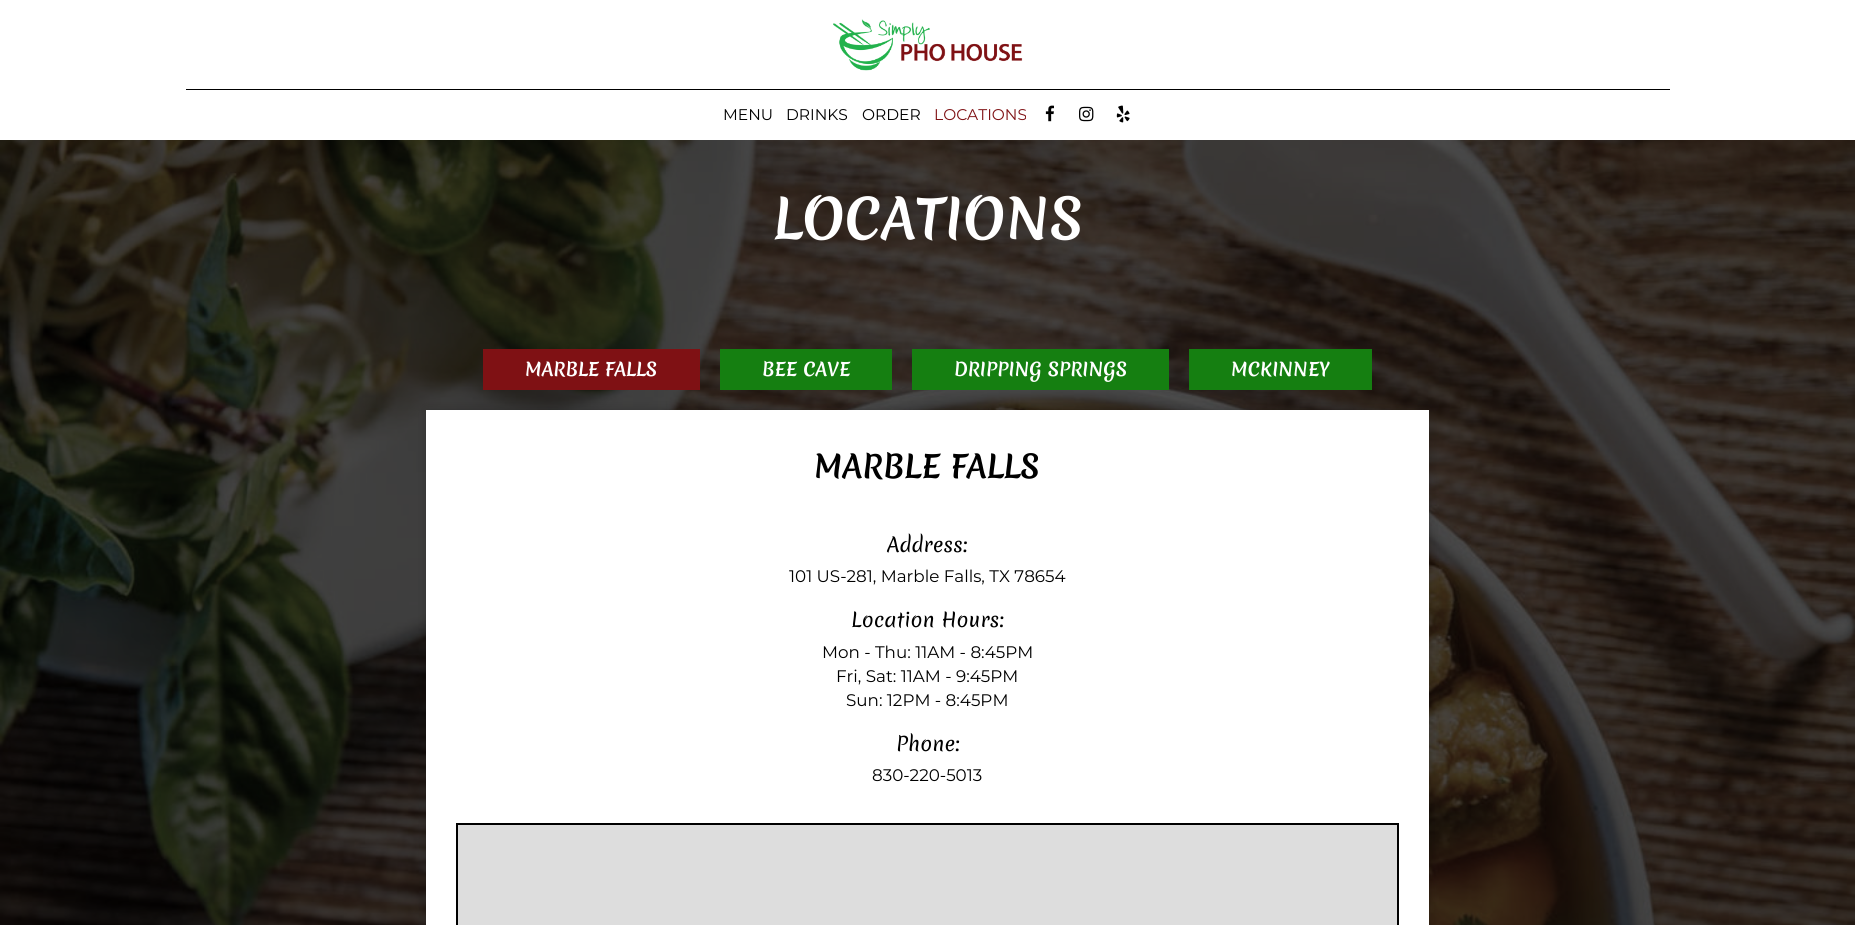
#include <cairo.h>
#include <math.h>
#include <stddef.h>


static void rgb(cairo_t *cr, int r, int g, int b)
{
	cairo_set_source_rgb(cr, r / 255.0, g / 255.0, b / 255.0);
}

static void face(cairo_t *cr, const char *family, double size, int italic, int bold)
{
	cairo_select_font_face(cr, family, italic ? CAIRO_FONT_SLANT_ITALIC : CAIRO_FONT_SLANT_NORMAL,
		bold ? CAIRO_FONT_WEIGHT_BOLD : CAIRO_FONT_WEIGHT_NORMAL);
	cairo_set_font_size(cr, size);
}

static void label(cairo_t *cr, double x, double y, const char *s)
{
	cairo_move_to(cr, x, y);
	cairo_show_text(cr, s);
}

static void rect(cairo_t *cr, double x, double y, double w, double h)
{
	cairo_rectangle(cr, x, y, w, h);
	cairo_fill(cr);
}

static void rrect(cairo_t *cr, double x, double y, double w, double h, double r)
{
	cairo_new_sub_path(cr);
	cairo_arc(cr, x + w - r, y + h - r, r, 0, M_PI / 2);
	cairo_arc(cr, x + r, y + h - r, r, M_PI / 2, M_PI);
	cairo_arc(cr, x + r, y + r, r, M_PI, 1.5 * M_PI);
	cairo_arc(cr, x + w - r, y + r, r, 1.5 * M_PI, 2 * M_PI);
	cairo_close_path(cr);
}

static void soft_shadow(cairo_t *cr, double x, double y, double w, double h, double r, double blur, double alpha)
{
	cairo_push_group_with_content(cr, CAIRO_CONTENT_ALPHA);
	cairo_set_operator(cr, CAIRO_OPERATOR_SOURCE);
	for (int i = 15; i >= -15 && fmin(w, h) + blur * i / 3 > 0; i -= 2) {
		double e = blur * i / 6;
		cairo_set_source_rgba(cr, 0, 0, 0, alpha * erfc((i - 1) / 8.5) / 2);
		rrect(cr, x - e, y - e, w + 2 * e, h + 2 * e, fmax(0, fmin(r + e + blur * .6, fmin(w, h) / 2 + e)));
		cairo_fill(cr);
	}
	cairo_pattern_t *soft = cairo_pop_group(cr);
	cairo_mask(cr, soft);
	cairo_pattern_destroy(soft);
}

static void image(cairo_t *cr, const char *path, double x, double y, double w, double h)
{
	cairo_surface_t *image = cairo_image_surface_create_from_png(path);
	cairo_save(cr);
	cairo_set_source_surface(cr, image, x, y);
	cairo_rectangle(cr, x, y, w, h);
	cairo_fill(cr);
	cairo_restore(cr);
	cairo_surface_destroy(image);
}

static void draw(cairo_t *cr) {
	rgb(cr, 0, 0, 0);
	cairo_paint(cr);
	rgb(cr, 255, 255, 255);
	rect(cr, 0, 0, 1855, 140);
	rgb(cr, 0, 0, 0);
	rect(cr, 186, 89, 1484, 1);
	image(cr, "image0.png", 833, 19, 190, 52);
	face(cr, "Montserrat Thin", 15.5, 0, 0);
	label(cr, 723, 120, "MENU");
	label(cr, 786, 120, "DRINKS");
	label(cr, 862, 120, "ORDER");
	rgb(cr, 127, 17, 20);
	label(cr, 934, 120, "LOCATIONS");
	image(cr, "image1.png", 1045, 105, 9, 17);
	image(cr, "image2.png", 1079, 106, 15, 16);
	image(cr, "image3.png", 1116, 105, 14, 18);
	image(cr, "image4.png", 0, 140, 1855, 785);
	face(cr, "Merienda", 53.25, 0, 1);
	rgb(cr, 255, 255, 255);
	label(cr, 773, 239, "LOCATIONS");
	rgb(cr, 127, 17, 20);
	rect(cr, 483, 349, 217, 41);
	face(cr, "Merienda", 18, 0, 1);
	rgb(cr, 255, 255, 255);
	label(cr, 525, 376, "MARBLE FALLS");
	rgb(cr, 21, 127, 17);
	rect(cr, 720, 349, 172, 41);
	rgb(cr, 255, 255, 255);
	label(cr, 762, 376, "BEE CAVE");
	rgb(cr, 21, 127, 17);
	rect(cr, 912, 349, 257, 41);
	rgb(cr, 255, 255, 255);
	label(cr, 954, 376, "DRIPPING SPRINGS");
	rgb(cr, 21, 127, 17);
	rect(cr, 1189, 349, 183, 41);
	rgb(cr, 255, 255, 255);
	label(cr, 1231, 376, "MCKINNEY");
	rgb(cr, 0, 0, 0);
	soft_shadow(cr, 426, 410, 1003, 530, 0, 5, 0.2);
	rgb(cr, 255, 255, 255);
	rect(cr, 426, 410, 1003, 515);
	face(cr, "Merienda", 30.75, 0, 1);
	rgb(cr, 0, 0, 0);
	label(cr, 814, 478, "MARBLE FALLS");
	face(cr, "Merienda", 19.5, 0, 0);
	label(cr, 887, 552, "Address:");
	face(cr, "Montserrat Thin", 16.75, 0, 0);
	label(cr, 789, 582, "101 US-281, Marble Falls, TX 78654");
	face(cr, "Merienda", 19.5, 0, 0);
	label(cr, 851, 627, "Location Hours:");
	face(cr, "Montserrat Thin", 16.75, 0, 0);
	label(cr, 822, 658, "Mon - Thu: 11AM - 8:45PM");
	label(cr, 836, 682, "Fri, Sat: 11AM - 9:45PM");
	label(cr, 846, 706, "Sun: 12PM - 8:45PM");
	face(cr, "Merienda", 19.5, 0, 0);
	label(cr, 896, 751, "Phone:");
	face(cr, "Montserrat Thin", 16.75, 0, 0);
	label(cr, 872, 781, "830-220-5013");
	rgb(cr, 221, 221, 221);
	cairo_rectangle(cr, 457, 824, 941, 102);
	cairo_fill_preserve(cr);
	rgb(cr, 0, 0, 0);
	cairo_stroke(cr);
}

int main(void) {
	cairo_surface_t *surface = cairo_image_surface_create(CAIRO_FORMAT_RGB24, 1855, 925);
	cairo_t *cr = cairo_create(surface);
	cairo_font_options_t *options = cairo_font_options_create();
	cairo_font_options_set_hint_metrics(options, CAIRO_HINT_METRICS_OFF);
	cairo_font_options_set_hint_style(options, CAIRO_HINT_STYLE_NONE);
	cairo_set_font_options(cr, options);
	cairo_set_miter_limit(cr, 4);
	draw(cr);
	cairo_surface_write_to_png(surface, "render.png");
	cairo_font_options_destroy(options);
	cairo_destroy(cr);
	cairo_surface_destroy(surface);
	return 0;
}
